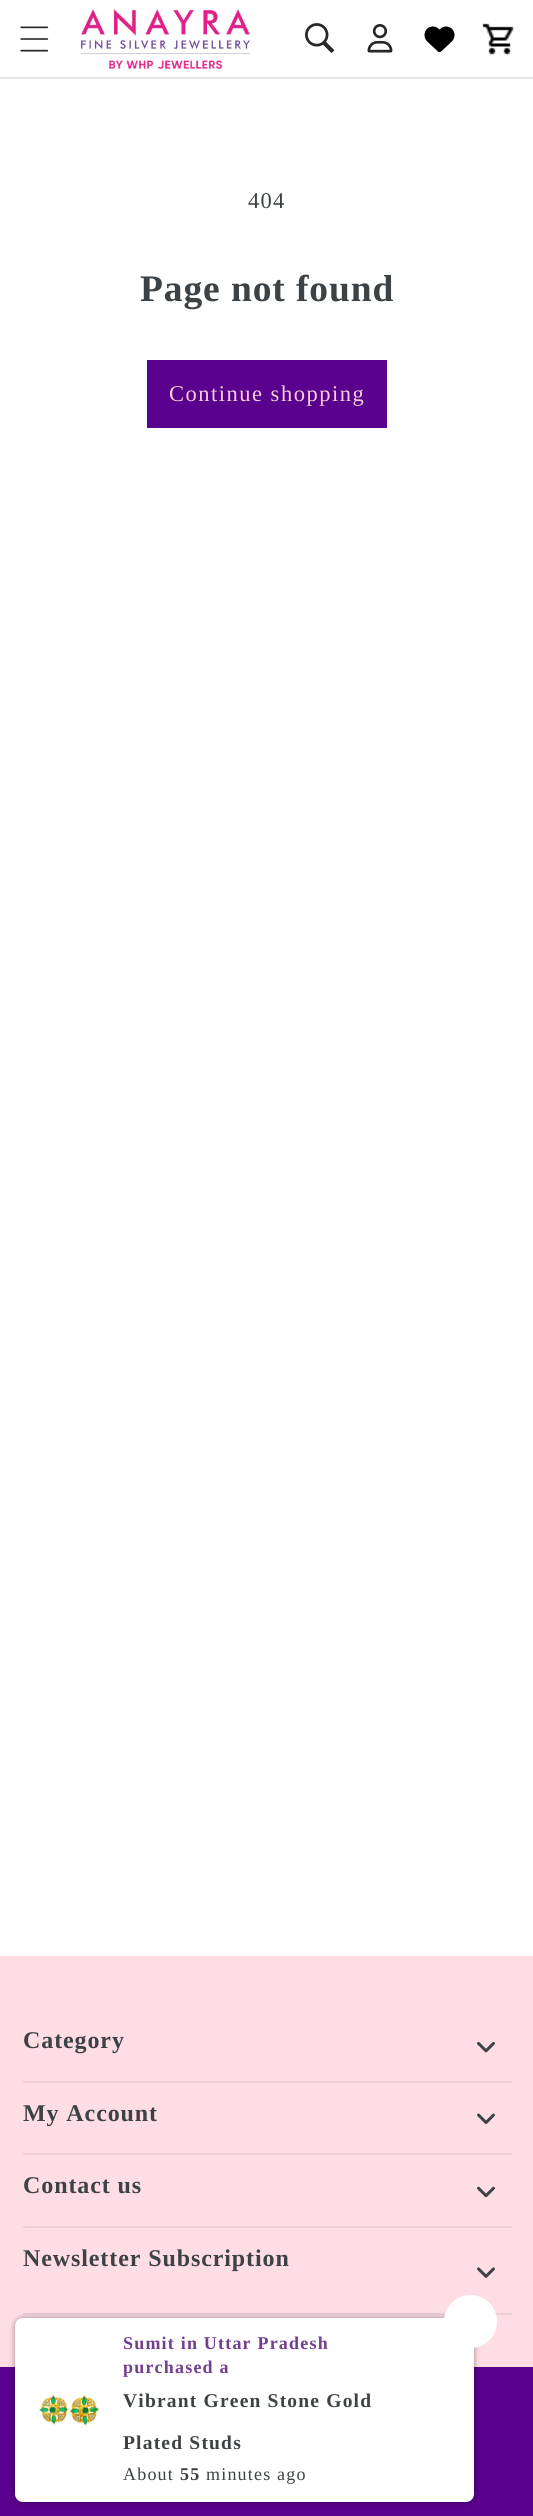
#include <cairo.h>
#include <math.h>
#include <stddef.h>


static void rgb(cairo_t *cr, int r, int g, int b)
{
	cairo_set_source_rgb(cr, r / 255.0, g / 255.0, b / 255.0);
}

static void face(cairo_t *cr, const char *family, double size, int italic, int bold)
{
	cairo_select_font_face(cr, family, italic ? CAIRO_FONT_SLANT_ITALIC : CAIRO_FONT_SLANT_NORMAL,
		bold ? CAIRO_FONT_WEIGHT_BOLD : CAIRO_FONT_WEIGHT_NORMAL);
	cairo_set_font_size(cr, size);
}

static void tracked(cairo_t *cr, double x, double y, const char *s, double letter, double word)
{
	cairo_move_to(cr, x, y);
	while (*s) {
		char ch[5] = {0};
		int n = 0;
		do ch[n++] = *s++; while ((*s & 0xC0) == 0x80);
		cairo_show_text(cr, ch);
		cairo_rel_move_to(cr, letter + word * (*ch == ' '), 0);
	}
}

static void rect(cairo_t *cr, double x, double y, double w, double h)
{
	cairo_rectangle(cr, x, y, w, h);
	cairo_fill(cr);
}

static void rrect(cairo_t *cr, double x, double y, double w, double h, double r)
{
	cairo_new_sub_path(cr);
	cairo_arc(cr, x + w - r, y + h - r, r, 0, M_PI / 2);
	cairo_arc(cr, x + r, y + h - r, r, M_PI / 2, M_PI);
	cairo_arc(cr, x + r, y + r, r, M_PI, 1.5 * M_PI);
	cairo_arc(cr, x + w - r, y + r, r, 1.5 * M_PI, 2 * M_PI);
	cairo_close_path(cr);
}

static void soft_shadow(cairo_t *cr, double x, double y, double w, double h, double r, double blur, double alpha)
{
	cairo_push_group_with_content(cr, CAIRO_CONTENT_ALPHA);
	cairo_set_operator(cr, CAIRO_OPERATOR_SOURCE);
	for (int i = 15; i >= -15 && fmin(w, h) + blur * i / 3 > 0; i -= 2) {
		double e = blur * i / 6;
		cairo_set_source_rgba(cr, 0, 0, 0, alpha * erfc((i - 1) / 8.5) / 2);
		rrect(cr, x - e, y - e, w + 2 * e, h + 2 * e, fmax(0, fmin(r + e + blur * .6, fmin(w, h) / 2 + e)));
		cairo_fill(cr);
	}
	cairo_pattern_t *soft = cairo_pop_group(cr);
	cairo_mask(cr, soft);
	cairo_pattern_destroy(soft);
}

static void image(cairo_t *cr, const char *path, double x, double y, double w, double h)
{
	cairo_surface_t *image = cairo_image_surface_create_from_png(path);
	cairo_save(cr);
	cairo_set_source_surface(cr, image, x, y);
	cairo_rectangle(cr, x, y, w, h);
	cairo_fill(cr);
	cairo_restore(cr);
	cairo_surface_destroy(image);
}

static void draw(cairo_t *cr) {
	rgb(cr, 255, 255, 255);
	cairo_paint(cr);
	rgb(cr, 230, 230, 230);
	rect(cr, 0, 77, 533, 2);
	image(cr, "image0.png", 20, 26, 29, 26);
	image(cr, "image1.png", 79, 9, 171, 62);
	image(cr, "image2.png", 305, 23, 30, 31);
	image(cr, "image3.png", 367, 24, 26, 29);
	image(cr, "image4.png", 424, 26, 31, 27);
	image(cr, "image5.png", 482, 23, 32, 32);
	face(cr, "Liberation Serif", 22.5, 0, 0);
	rgb(cr, 61, 66, 70);
	tracked(cr, 248, 208, "404", 1.2, 0);
	face(cr, "Liberation Serif", 37.5, 0, 1);
	tracked(cr, 140, 301, "Page not found", 0.9, 0);
	rgb(cr, 90, 0, 142);
	rect(cr, 147, 360, 240, 68);
	face(cr, "Liberation Serif", 22.5, 0, 0);
	rgb(cr, 247, 207, 215);
	tracked(cr, 169, 401, "Continue shopping", 1.5, 0);
	rgb(cr, 255, 221, 228);
	rect(cr, 0, 1956, 533, 411);
	rgb(cr, 236, 206, 212);
	rect(cr, 23, 2081, 489, 2);
	face(cr, "Liberation Serif", 24, 0, 1);
	rgb(cr, 61, 66, 70);
	tracked(cr, 23, 2048, "Category", 0.9, 0);
	image(cr, "image6.png", 477, 2041, 18, 12);
	rgb(cr, 236, 206, 212);
	rect(cr, 23, 2153, 489, 2);
	rgb(cr, 61, 66, 70);
	tracked(cr, 23, 2121, "My Account", 0.9, 0);
	image(cr, "image7.png", 477, 2113, 18, 11);
	rgb(cr, 236, 206, 212);
	rect(cr, 23, 2226, 489, 2);
	rgb(cr, 61, 66, 70);
	tracked(cr, 23, 2193, "Contact us", 0.9, 0);
	image(cr, "image8.png", 477, 2186, 18, 12);
	rgb(cr, 236, 206, 212);
	rect(cr, 23, 2313, 489, 2);
	rgb(cr, 61, 66, 70);
	tracked(cr, 23, 2266, "Newsletter Subscription", 0.9, 0);
	image(cr, "image9.png", 477, 2267, 18, 11);
	rgb(cr, 90, 0, 142);
	rect(cr, 0, 2367, 533, 149);
	rgb(cr, 0, 0, 0);
	soft_shadow(cr, 15, 2318, 459, 184, 8, 3, 0.4);
	rgb(cr, 255, 255, 255);
	rrect(cr, 15, 2318, 459, 184, 8);
	cairo_fill(cr);
	cairo_arc(cr, 470.5, 2321.5, 26.5, 0, 2 * M_PI);
	cairo_fill(cr);
	image(cr, "image10.png", 38, 2394, 62, 32);
	face(cr, "Liberation Serif", 18, 0, 1);
	rgb(cr, 114, 62, 144);
	tracked(cr, 123, 2349, "Sumit in Uttar Pradesh", 1.2, 0);
	tracked(cr, 123, 2373, "purchased a", 1.2, 0);
	face(cr, "Liberation Serif", 19.5, 0, 1);
	rgb(cr, 61, 66, 70);
	tracked(cr, 123, 2407, "Vibrant Green Stone Gold", 1.2, 0);
	tracked(cr, 123, 2449, "Plated Studs", 1.2, 0);
	face(cr, "Liberation Serif", 18, 0, 0);
	tracked(cr, 123, 2480, "About", 1.2, 0);
	face(cr, "Liberation Serif", 18, 0, 1);
	tracked(cr, 180, 2480, "55", 1.2, 0);
	face(cr, "Liberation Serif", 18, 0, 0);
	tracked(cr, 206, 2480, "minutes ago", 1.2, 0);
}

int main(void) {
	cairo_surface_t *surface = cairo_image_surface_create(CAIRO_FORMAT_RGB24, 533, 2516);
	cairo_t *cr = cairo_create(surface);
	cairo_font_options_t *options = cairo_font_options_create();
	cairo_font_options_set_hint_metrics(options, CAIRO_HINT_METRICS_OFF);
	cairo_font_options_set_hint_style(options, CAIRO_HINT_STYLE_NONE);
	cairo_set_font_options(cr, options);
	cairo_set_miter_limit(cr, 4);
	draw(cr);
	cairo_surface_write_to_png(surface, "render.png");
	cairo_font_options_destroy(options);
	cairo_destroy(cr);
	cairo_surface_destroy(surface);
	return 0;
}
